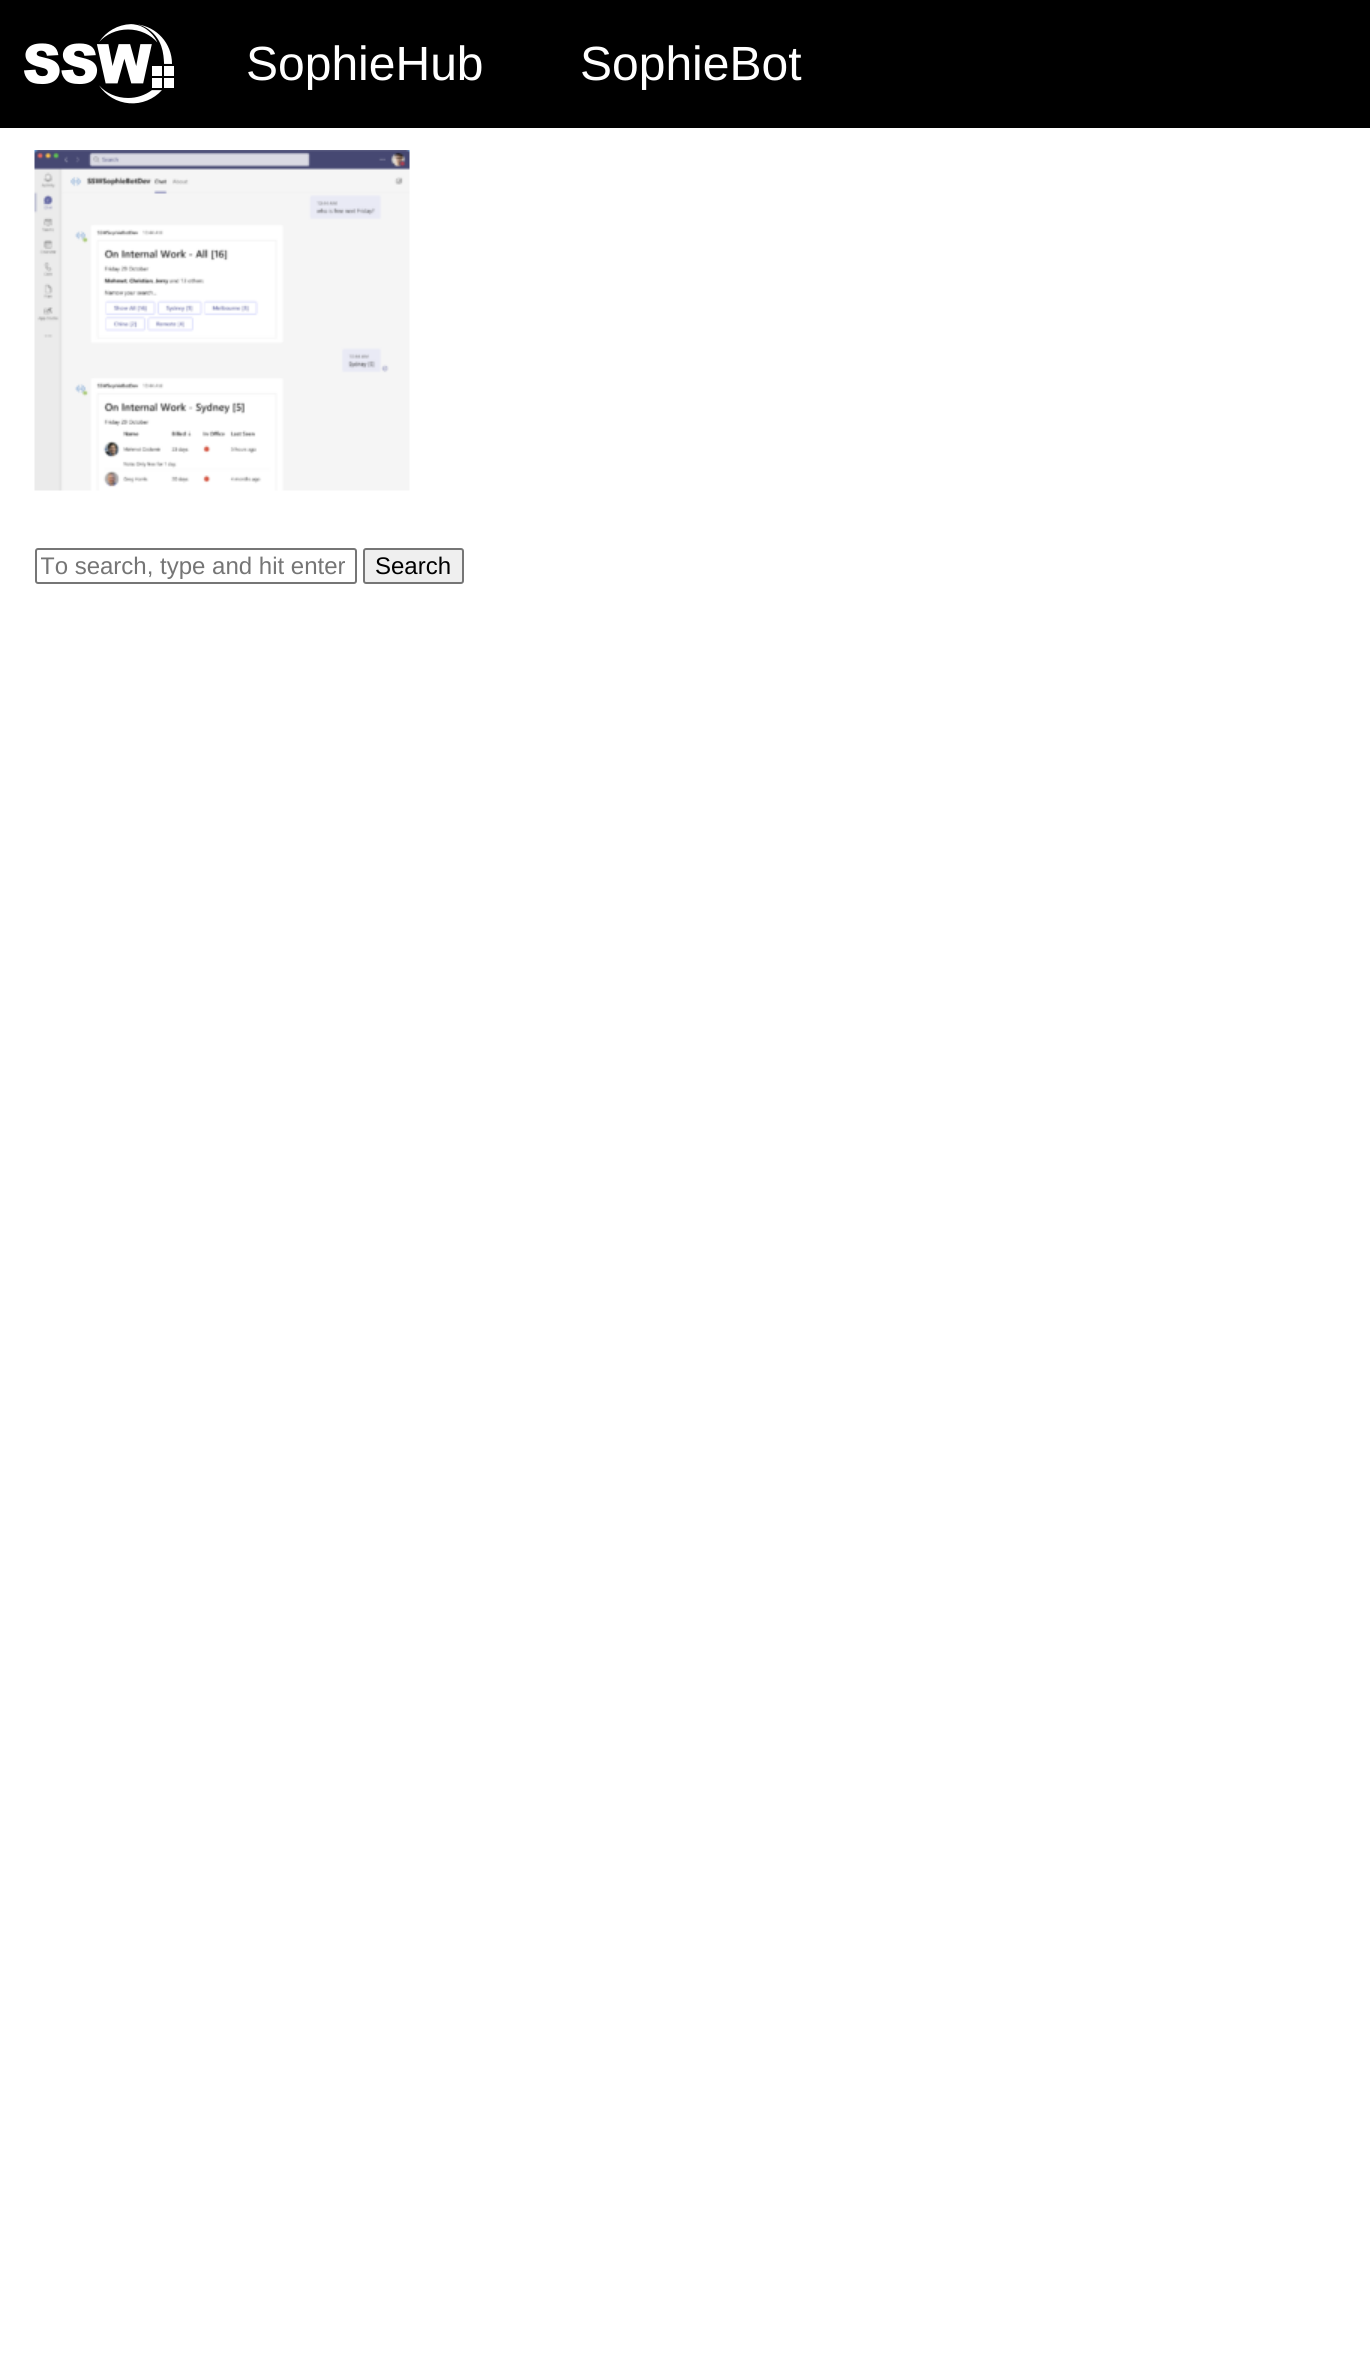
#include <cairo.h>
#include <math.h>
#include <stddef.h>


static void rgb(cairo_t *cr, int r, int g, int b)
{
	cairo_set_source_rgb(cr, r / 255.0, g / 255.0, b / 255.0);
}

static void face(cairo_t *cr, const char *family, double size, int italic, int bold)
{
	cairo_select_font_face(cr, family, italic ? CAIRO_FONT_SLANT_ITALIC : CAIRO_FONT_SLANT_NORMAL,
		bold ? CAIRO_FONT_WEIGHT_BOLD : CAIRO_FONT_WEIGHT_NORMAL);
	cairo_set_font_size(cr, size);
}

static void label(cairo_t *cr, double x, double y, const char *s)
{
	cairo_move_to(cr, x, y);
	cairo_show_text(cr, s);
}

static void rect(cairo_t *cr, double x, double y, double w, double h)
{
	cairo_rectangle(cr, x, y, w, h);
	cairo_fill(cr);
}

static void rrect(cairo_t *cr, double x, double y, double w, double h, double r)
{
	cairo_new_sub_path(cr);
	cairo_arc(cr, x + w - r, y + h - r, r, 0, M_PI / 2);
	cairo_arc(cr, x + r, y + h - r, r, M_PI / 2, M_PI);
	cairo_arc(cr, x + r, y + r, r, M_PI, 1.5 * M_PI);
	cairo_arc(cr, x + w - r, y + r, r, 1.5 * M_PI, 2 * M_PI);
	cairo_close_path(cr);
}

static void image(cairo_t *cr, const char *path, double x, double y, double w, double h)
{
	cairo_surface_t *image = cairo_image_surface_create_from_png(path);
	cairo_save(cr);
	cairo_set_source_surface(cr, image, x, y);
	cairo_rectangle(cr, x, y, w, h);
	cairo_fill(cr);
	cairo_restore(cr);
	cairo_surface_destroy(image);
}

static void draw(cairo_t *cr) {
	rgb(cr, 255, 255, 255);
	cairo_paint(cr);
	rgb(cr, 0, 0, 0);
	rect(cr, 0, 0, 1370, 128);
	image(cr, "image0.png", 24, 24, 150, 80);
	face(cr, "Liberation Sans", 48, 0, 0);
	rgb(cr, 255, 255, 255);
	label(cr, 246, 80, "SophieHub");
	label(cr, 580, 80, "SophieBot");
	image(cr, "image1.png", 34, 150, 376, 341);
	rrect(cr, 36, 549, 320, 34, 2);
	rgb(cr, 118, 118, 118);
	cairo_stroke(cr);
	cairo_save(cr);
	cairo_rectangle(cr, 41, 552, 304, 27);
	cairo_clip(cr);
	face(cr, "Liberation Sans", 24, 0, 0);
	rgb(cr, 117, 117, 117);
	label(cr, 40, 574, "To search, type and hit enter");
	cairo_restore(cr);
	rgb(cr, 239, 239, 239);
	rrect(cr, 364, 549, 99, 34, 2);
	cairo_fill_preserve(cr);
	rgb(cr, 118, 118, 118);
	cairo_stroke(cr);
	face(cr, "Liberation Sans", 24, 0, 0);
	rgb(cr, 0, 0, 0);
	label(cr, 375, 574, "Search");
}

int main(void) {
	cairo_surface_t *surface = cairo_image_surface_create(CAIRO_FORMAT_RGB24, 1370, 2363);
	cairo_t *cr = cairo_create(surface);
	cairo_font_options_t *options = cairo_font_options_create();
	cairo_font_options_set_hint_metrics(options, CAIRO_HINT_METRICS_OFF);
	cairo_font_options_set_hint_style(options, CAIRO_HINT_STYLE_NONE);
	cairo_set_font_options(cr, options);
	cairo_set_miter_limit(cr, 4);
	draw(cr);
	cairo_surface_write_to_png(surface, "render.png");
	cairo_font_options_destroy(options);
	cairo_destroy(cr);
	cairo_surface_destroy(surface);
	return 0;
}
